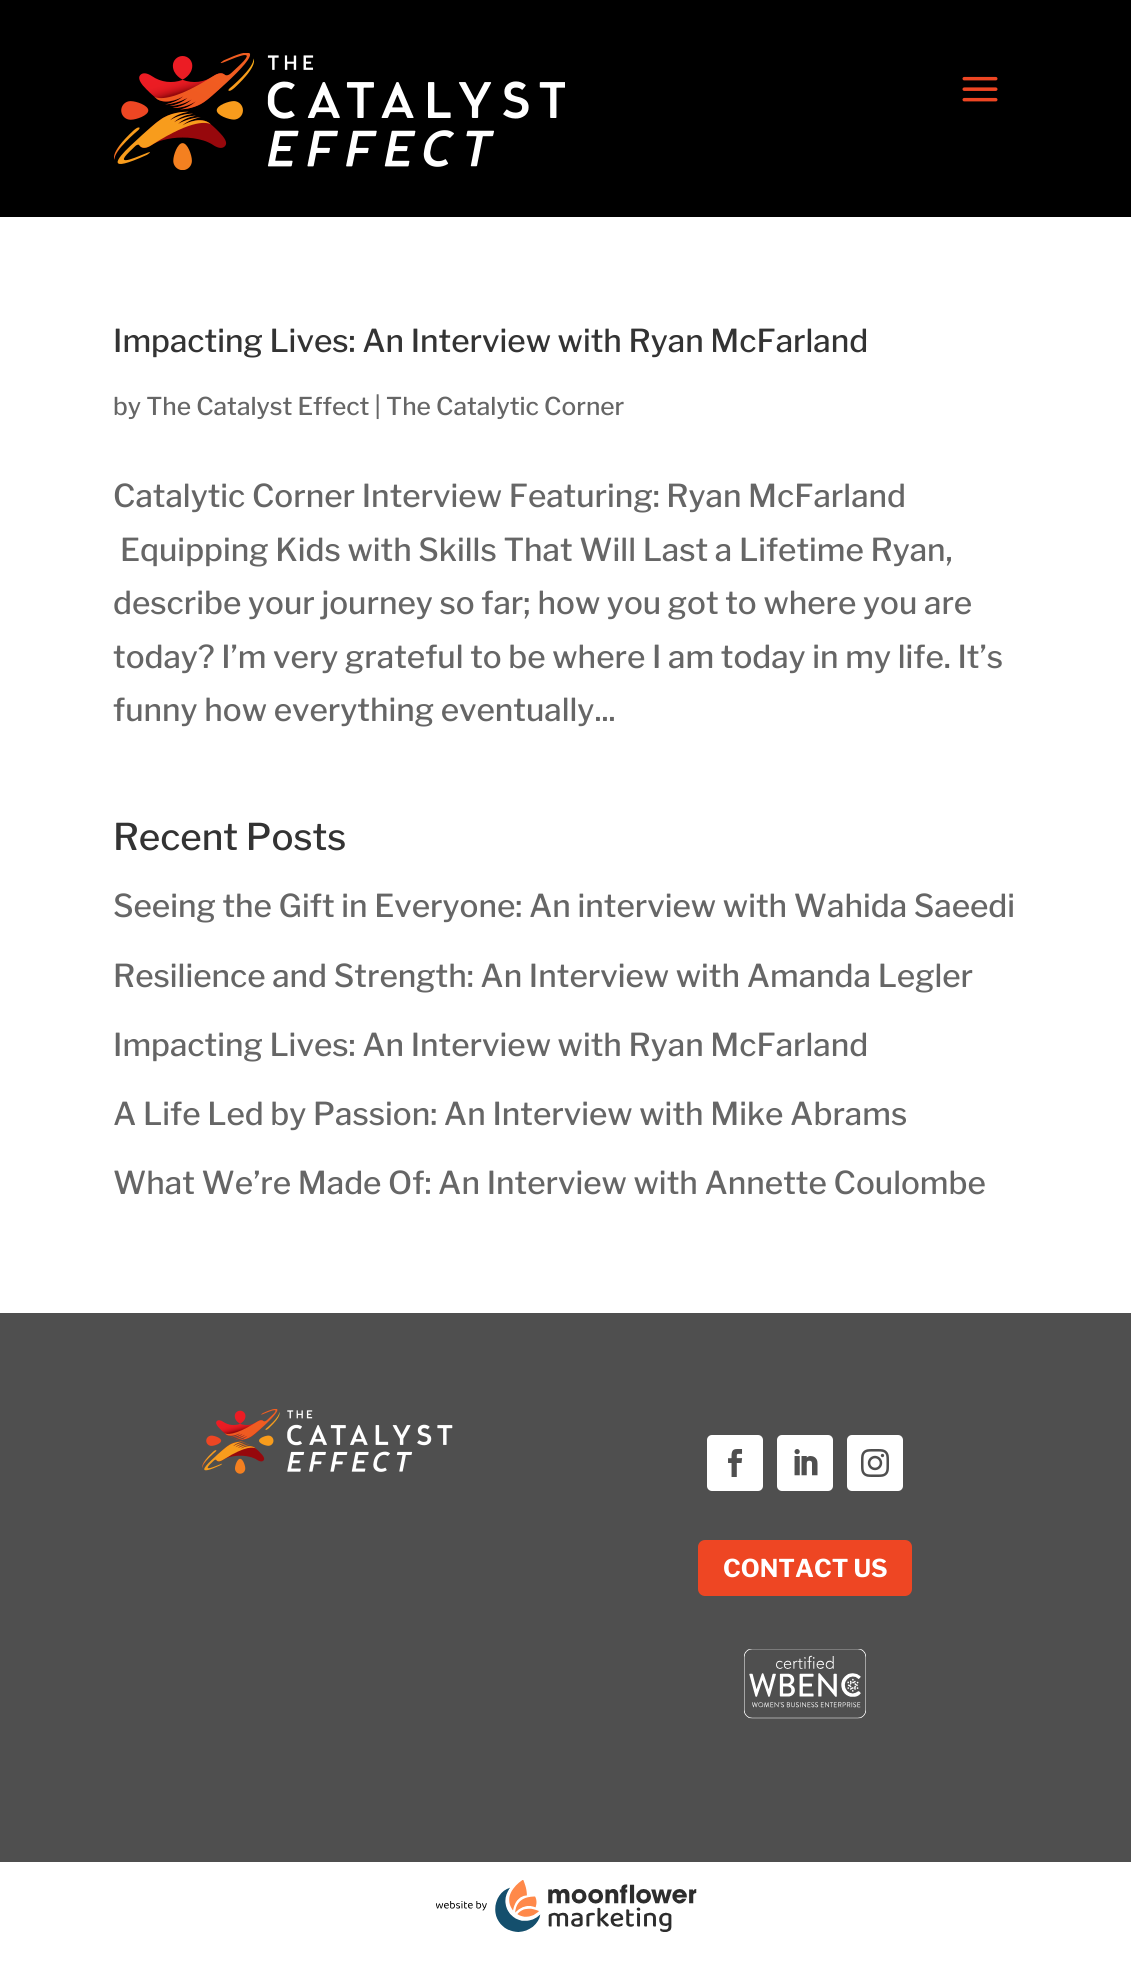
#include <cairo.h>
#include <math.h>
#include <stddef.h>


static void rgb(cairo_t *cr, int r, int g, int b)
{
	cairo_set_source_rgb(cr, r / 255.0, g / 255.0, b / 255.0);
}

static void face(cairo_t *cr, const char *family, double size, int italic, int bold)
{
	cairo_select_font_face(cr, family, italic ? CAIRO_FONT_SLANT_ITALIC : CAIRO_FONT_SLANT_NORMAL,
		bold ? CAIRO_FONT_WEIGHT_BOLD : CAIRO_FONT_WEIGHT_NORMAL);
	cairo_set_font_size(cr, size);
}

static void label(cairo_t *cr, double x, double y, const char *s)
{
	cairo_move_to(cr, x, y);
	cairo_show_text(cr, s);
}

static void rect(cairo_t *cr, double x, double y, double w, double h)
{
	cairo_rectangle(cr, x, y, w, h);
	cairo_fill(cr);
}

static void rrect(cairo_t *cr, double x, double y, double w, double h, double r)
{
	cairo_new_sub_path(cr);
	cairo_arc(cr, x + w - r, y + h - r, r, 0, M_PI / 2);
	cairo_arc(cr, x + r, y + h - r, r, M_PI / 2, M_PI);
	cairo_arc(cr, x + r, y + r, r, M_PI, 1.5 * M_PI);
	cairo_arc(cr, x + w - r, y + r, r, 1.5 * M_PI, 2 * M_PI);
	cairo_close_path(cr);
}

static void image(cairo_t *cr, const char *path, double x, double y, double w, double h)
{
	cairo_surface_t *image = cairo_image_surface_create_from_png(path);
	cairo_save(cr);
	cairo_set_source_surface(cr, image, x, y);
	cairo_rectangle(cr, x, y, w, h);
	cairo_fill(cr);
	cairo_restore(cr);
	cairo_surface_destroy(image);
}

static void draw(cairo_t *cr) {
	rgb(cr, 255, 255, 255);
	cairo_paint(cr);
	rgb(cr, 0, 0, 0);
	rect(cr, 0, 0, 1131, 217);
	image(cr, "image0.png", 114, 53, 451, 117);
	image(cr, "image1.png", 962, 76, 36, 26);
	face(cr, "Libre Franklin Medium", 31.5, 0, 0);
	rgb(cr, 51, 51, 51);
	label(cr, 113, 352, "Impacting Lives: An Interview with Ryan McFarland");
	face(cr, "Libre Franklin Medium", 24.5, 0, 0);
	rgb(cr, 102, 102, 102);
	label(cr, 113, 415, "by The Catalyst Effect | The Catalytic Corner");
	face(cr, "Libre Franklin Medium", 31.5, 0, 0);
	label(cr, 113, 507, "Catalytic Corner Interview Featuring: Ryan McFarland");
	label(cr, 120, 561, "Equipping Kids with Skills That Will Last a Lifetime Ryan,");
	label(cr, 113, 614, "describe your journey so far; how you got to where you are");
	label(cr, 113, 668, "today? I’m very grateful to be where I am today in my life. It’s");
	label(cr, 113, 721, "funny how everything eventually...");
	face(cr, "Libre Franklin Medium", 36.75, 0, 0);
	rgb(cr, 51, 51, 51);
	label(cr, 113, 850, "Recent Posts");
	face(cr, "Libre Franklin Medium", 31.5, 0, 0);
	rgb(cr, 102, 102, 102);
	label(cr, 113, 917, "Seeing the Gift in Everyone: An interview with Wahida Saeedi");
	label(cr, 113, 987, "Resilience and Strength: An Interview with Amanda Legler");
	label(cr, 113, 1056, "Impacting Lives: An Interview with Ryan McFarland");
	label(cr, 113, 1125, "A Life Led by Passion: An Interview with Mike Abrams");
	label(cr, 113, 1194, "What We’re Made Of: An Interview with Annette Coulombe");
	rgb(cr, 79, 79, 79);
	rect(cr, 0, 1313, 1131, 549);
	image(cr, "image2.png", 202, 1409, 251, 65);
	rgb(cr, 255, 255, 255);
	rrect(cr, 707, 1435, 56, 56, 5);
	cairo_fill(cr);
	image(cr, "image3.png", 728, 1449, 15, 28);
	rrect(cr, 777, 1435, 56, 56, 5);
	cairo_fill(cr);
	image(cr, "image4.png", 794, 1449, 24, 27);
	rrect(cr, 847, 1435, 56, 56, 5);
	cairo_fill(cr);
	image(cr, "image5.png", 861, 1449, 28, 28);
	rgb(cr, 238, 70, 35);
	rrect(cr, 698, 1540, 214, 56, 7);
	cairo_fill(cr);
	face(cr, "Libre Franklin", 24.5, 0, 1);
	rgb(cr, 255, 255, 255);
	label(cr, 723, 1577, "CONTACT US");
	image(cr, "image6.png", 744, 1649, 122, 70);
	image(cr, "image7.png", 436, 1880, 261, 52);
}

int main(void) {
	cairo_surface_t *surface = cairo_image_surface_create(CAIRO_FORMAT_RGB24, 1131, 1971);
	cairo_t *cr = cairo_create(surface);
	cairo_font_options_t *options = cairo_font_options_create();
	cairo_font_options_set_hint_metrics(options, CAIRO_HINT_METRICS_OFF);
	cairo_font_options_set_hint_style(options, CAIRO_HINT_STYLE_NONE);
	cairo_set_font_options(cr, options);
	cairo_set_miter_limit(cr, 4);
	draw(cr);
	cairo_surface_write_to_png(surface, "render.png");
	cairo_font_options_destroy(options);
	cairo_destroy(cr);
	cairo_surface_destroy(surface);
	return 0;
}
